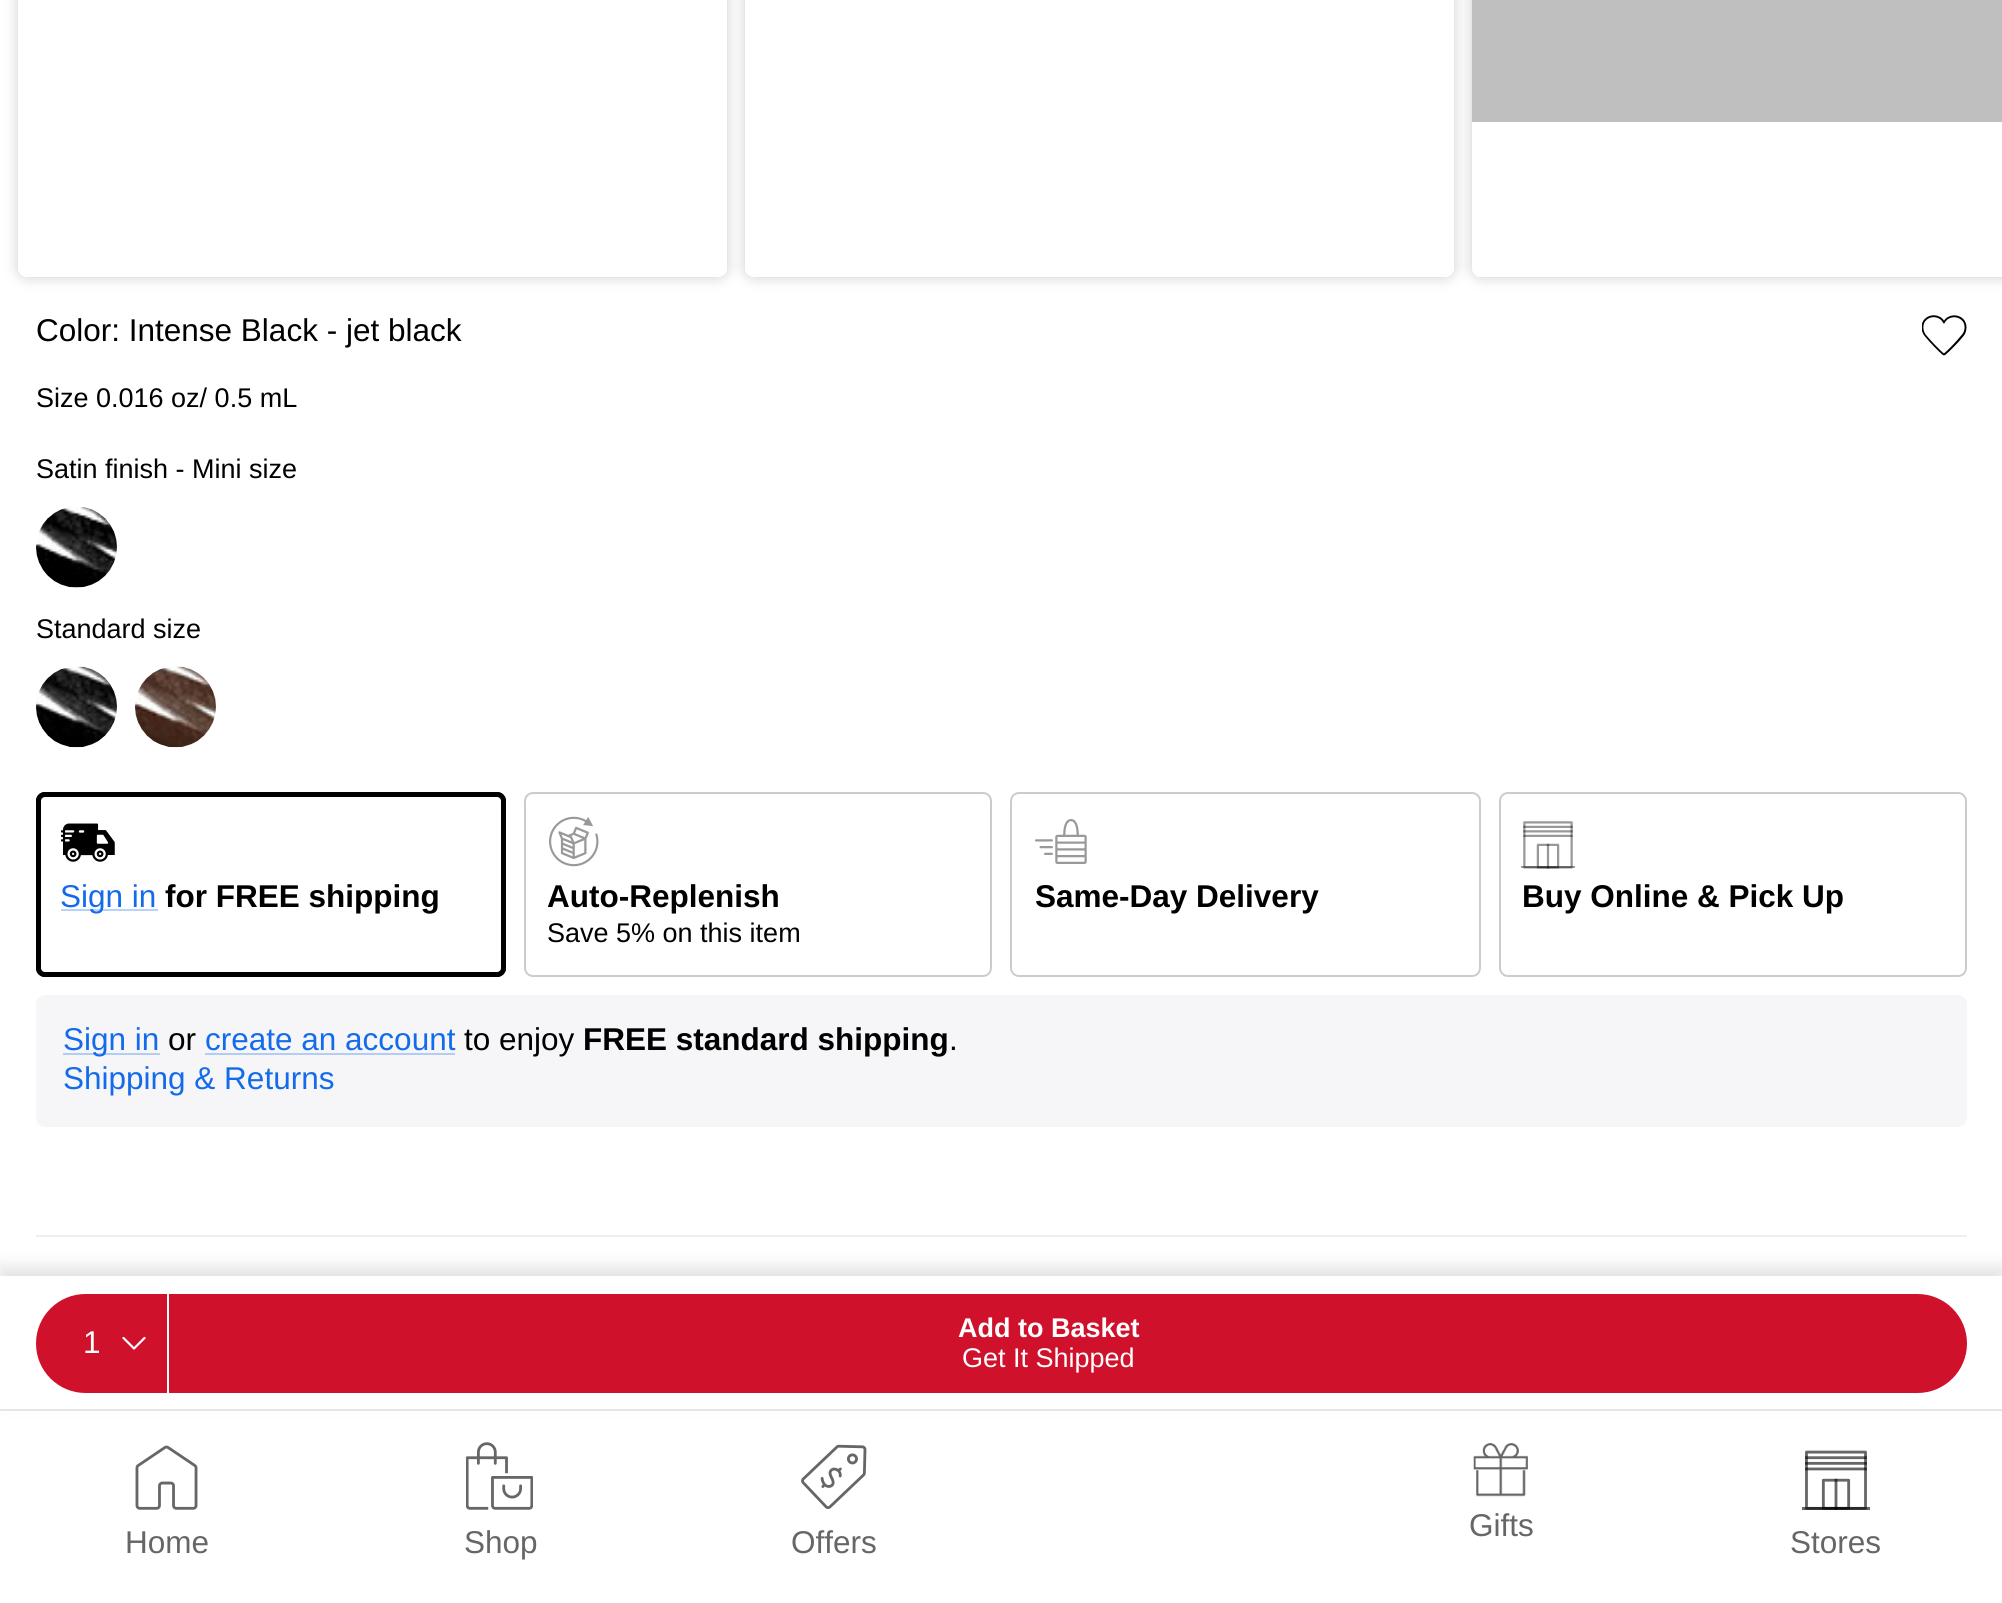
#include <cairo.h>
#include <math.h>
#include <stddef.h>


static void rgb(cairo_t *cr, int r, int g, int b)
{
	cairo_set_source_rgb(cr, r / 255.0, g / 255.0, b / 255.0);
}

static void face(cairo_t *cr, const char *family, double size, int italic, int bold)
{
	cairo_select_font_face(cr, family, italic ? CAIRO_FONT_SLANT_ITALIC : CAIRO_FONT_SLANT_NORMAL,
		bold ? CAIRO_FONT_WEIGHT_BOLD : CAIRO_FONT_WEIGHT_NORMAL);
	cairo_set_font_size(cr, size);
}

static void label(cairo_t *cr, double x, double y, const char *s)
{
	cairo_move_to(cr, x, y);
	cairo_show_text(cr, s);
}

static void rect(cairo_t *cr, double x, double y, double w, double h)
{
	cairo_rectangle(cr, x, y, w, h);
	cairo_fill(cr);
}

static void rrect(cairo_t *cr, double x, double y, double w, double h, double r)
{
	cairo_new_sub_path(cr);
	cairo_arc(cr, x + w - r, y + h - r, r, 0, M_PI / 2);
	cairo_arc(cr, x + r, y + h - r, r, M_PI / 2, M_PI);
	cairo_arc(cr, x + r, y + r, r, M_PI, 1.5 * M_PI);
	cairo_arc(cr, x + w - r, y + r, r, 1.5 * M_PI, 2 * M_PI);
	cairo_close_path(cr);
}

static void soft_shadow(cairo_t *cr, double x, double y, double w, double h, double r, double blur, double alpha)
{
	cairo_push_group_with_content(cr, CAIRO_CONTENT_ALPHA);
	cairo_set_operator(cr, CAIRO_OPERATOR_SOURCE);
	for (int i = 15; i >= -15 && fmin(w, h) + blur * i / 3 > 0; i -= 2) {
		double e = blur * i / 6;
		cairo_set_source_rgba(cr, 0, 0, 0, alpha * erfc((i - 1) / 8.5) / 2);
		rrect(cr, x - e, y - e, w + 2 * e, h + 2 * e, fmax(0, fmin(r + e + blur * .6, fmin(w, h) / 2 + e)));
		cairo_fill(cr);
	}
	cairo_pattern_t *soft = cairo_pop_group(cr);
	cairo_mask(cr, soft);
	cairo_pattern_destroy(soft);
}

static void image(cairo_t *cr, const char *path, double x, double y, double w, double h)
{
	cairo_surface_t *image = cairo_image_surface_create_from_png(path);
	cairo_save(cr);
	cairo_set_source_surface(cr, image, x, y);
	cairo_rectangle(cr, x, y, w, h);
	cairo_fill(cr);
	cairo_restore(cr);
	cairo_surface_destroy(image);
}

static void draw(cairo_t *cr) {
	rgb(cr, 255, 255, 255);
	cairo_paint(cr);
	cairo_save(cr);
	cairo_set_fill_rule(cr, CAIRO_FILL_RULE_EVEN_ODD);
	cairo_new_path(cr);
	cairo_move_to(cr, 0, 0);
	cairo_line_to(cr, 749, 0);
	cairo_line_to(cr, 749, 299);
	cairo_line_to(cr, 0, 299);
	cairo_close_path(cr);
	cairo_move_to(cr, 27, -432);
	cairo_line_to(cr, 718, -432);
	cairo_curve_to(cr, 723, -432, 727, -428, 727, -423);
	cairo_line_to(cr, 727, 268);
	cairo_curve_to(cr, 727, 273, 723, 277, 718, 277);
	cairo_line_to(cr, 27, 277);
	cairo_curve_to(cr, 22, 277, 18, 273, 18, 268);
	cairo_line_to(cr, 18, -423);
	cairo_curve_to(cr, 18, -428, 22, -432, 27, -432);
	cairo_close_path(cr);
	cairo_clip(cr);
	rgb(cr, 0, 0, 0);
	soft_shadow(cr, 18, -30, 709, 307, 9, 7, 0.2);
	cairo_restore(cr);
	cairo_save(cr);
	cairo_set_fill_rule(cr, CAIRO_FILL_RULE_EVEN_ODD);
	cairo_new_path(cr);
	cairo_move_to(cr, 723, 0);
	cairo_line_to(cr, 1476, 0);
	cairo_line_to(cr, 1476, 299);
	cairo_line_to(cr, 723, 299);
	cairo_close_path(cr);
	cairo_move_to(cr, 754, -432);
	cairo_line_to(cr, 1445, -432);
	cairo_curve_to(cr, 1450, -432, 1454, -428, 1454, -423);
	cairo_line_to(cr, 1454, 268);
	cairo_curve_to(cr, 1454, 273, 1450, 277, 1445, 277);
	cairo_line_to(cr, 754, 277);
	cairo_curve_to(cr, 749, 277, 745, 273, 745, 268);
	cairo_line_to(cr, 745, -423);
	cairo_curve_to(cr, 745, -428, 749, -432, 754, -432);
	cairo_close_path(cr);
	cairo_clip(cr);
	rgb(cr, 0, 0, 0);
	soft_shadow(cr, 745, -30, 709, 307, 9, 7, 0.2);
	cairo_restore(cr);
	cairo_save(cr);
	cairo_set_fill_rule(cr, CAIRO_FILL_RULE_EVEN_ODD);
	cairo_new_path(cr);
	cairo_move_to(cr, 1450, 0);
	cairo_line_to(cr, 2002, 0);
	cairo_line_to(cr, 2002, 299);
	cairo_line_to(cr, 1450, 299);
	cairo_close_path(cr);
	cairo_move_to(cr, 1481, -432);
	cairo_line_to(cr, 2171, -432);
	cairo_curve_to(cr, 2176, -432, 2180, -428, 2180, -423);
	cairo_line_to(cr, 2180, 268);
	cairo_curve_to(cr, 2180, 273, 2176, 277, 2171, 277);
	cairo_line_to(cr, 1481, 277);
	cairo_curve_to(cr, 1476, 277, 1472, 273, 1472, 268);
	cairo_line_to(cr, 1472, -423);
	cairo_curve_to(cr, 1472, -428, 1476, -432, 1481, -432);
	cairo_close_path(cr);
	cairo_clip(cr);
	rgb(cr, 0, 0, 0);
	soft_shadow(cr, 1472, -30, 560, 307, 9, 7, 0.2);
	cairo_restore(cr);
	rgb(cr, 191, 191, 191);
	rect(cr, 1472, 0, 530, 122);
	face(cr, "Liberation Sans", 31.5, 0, 0);
	rgb(cr, 0, 0, 0);
	label(cr, 36, 341, "Color: Intense Black - jet black");
	image(cr, "image0.png", 1922, 315, 45, 41);
	face(cr, "Liberation Sans", 27, 0, 0);
	label(cr, 36, 407, "Size 0.016 oz/ 0.5 mL");
	label(cr, 36, 478, "Satin finish - Mini size");
	image(cr, "image1.png", 36, 507, 81, 81);
	label(cr, 36, 638, "Standard size");
	image(cr, "image2.png", 36, 666, 81, 82);
	image(cr, "image3.png", 135, 666, 81, 82);
	rrect(cr, 37, 793, 468, 183, 8);
	cairo_stroke(cr);
	image(cr, "image4.png", 61, 823, 54, 39);
	rgb(cr, 184, 211, 249);
	rect(cr, 61, 909, 97, 2);
	rrect(cr, 38.5, 794.5, 465, 180, 6.5);
	rgb(cr, 0, 0, 0);
	cairo_set_line_width(cr, 5);
	cairo_stroke(cr);
	face(cr, "Liberation Sans", 31.5, 0, 0);
	rgb(cr, 19, 107, 234);
	label(cr, 60, 907, "Sign in");
	face(cr, "Liberation Sans", 31.5, 0, 1);
	rgb(cr, 0, 0, 0);
	label(cr, 165, 907, "for FREE shipping");
	rgb(cr, 246, 246, 248);
	rrect(cr, 36, 995, 1931, 132, 9);
	cairo_fill(cr);
	rgb(cr, 178, 204, 244);
	rect(cr, 63, 1053, 97, 2);
	face(cr, "Liberation Sans", 31.5, 0, 0);
	rgb(cr, 19, 107, 234);
	label(cr, 63, 1050, "Sign in");
	rgb(cr, 0, 0, 0);
	label(cr, 168, 1050, "or");
	rgb(cr, 19, 107, 234);
	label(cr, 205, 1050, "create an account");
	rgb(cr, 178, 204, 244);
	rect(cr, 205, 1053, 250, 2);
	rgb(cr, 0, 0, 0);
	label(cr, 464, 1050, "to enjoy");
	face(cr, "Liberation Sans", 31.5, 0, 1);
	label(cr, 583, 1050, "FREE standard shipping");
	face(cr, "Liberation Sans", 31.5, 0, 0);
	label(cr, 949, 1050, ".");
	rgb(cr, 19, 107, 234);
	label(cr, 63, 1089, "Shipping & Returns");
	rrect(cr, 525, 793, 466, 183, 8);
	rgb(cr, 204, 204, 204);
	cairo_set_line_width(cr, 2);
	cairo_stroke(cr);
	image(cr, "image5.png", 549, 816, 50, 51);
	face(cr, "Liberation Sans", 31.5, 0, 1);
	rgb(cr, 0, 0, 0);
	label(cr, 547, 907, "Auto-Replenish");
	face(cr, "Liberation Sans", 27, 0, 0);
	label(cr, 547, 942, "Save 5% on this item");
	rrect(cr, 1011, 793, 469, 183, 8);
	rgb(cr, 204, 204, 204);
	cairo_stroke(cr);
	image(cr, "image6.png", 1035, 819, 52, 45);
	face(cr, "Liberation Sans", 31.5, 0, 1);
	rgb(cr, 0, 0, 0);
	label(cr, 1035, 907, "Same-Day Delivery");
	rrect(cr, 1500, 793, 466, 183, 8);
	rgb(cr, 204, 204, 204);
	cairo_stroke(cr);
	image(cr, "image7.png", 1521, 821, 54, 48);
	rgb(cr, 0, 0, 0);
	label(cr, 1522, 907, "Buy Online & Pick Up");
	rgb(cr, 0, 0, 0);
	soft_shadow(cr, 0, 1267, 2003, 135, 0, 9, 0.12);
	rgb(cr, 255, 255, 255);
	rect(cr, 0, 1276, 2002, 133);
	rgb(cr, 207, 17, 44);
	rrect(cr, 36, 1294, 1931, 99, 49.5);
	cairo_fill(cr);
	rgb(cr, 255, 255, 255);
	rect(cr, 167, 1294, 2, 99);
	face(cr, "Liberation Sans", 31.5, 0, 0);
	label(cr, 83, 1353, "1");
	cairo_new_path(cr);
	cairo_move_to(cr, 123.5, 1338);
	cairo_line_to(cr, 134, 1348.5);
	cairo_line_to(cr, 144.5, 1338);
	cairo_set_line_width(cr, 2.2);
	cairo_set_line_cap(cr, CAIRO_LINE_CAP_ROUND);
	cairo_set_line_join(cr, CAIRO_LINE_JOIN_ROUND);
	cairo_stroke(cr);
	face(cr, "Liberation Sans", 27, 0, 1);
	label(cr, 958, 1337, "Add to Basket");
	face(cr, "Liberation Sans", 27, 0, 0);
	label(cr, 962, 1367, "Get It Shipped");
	rgb(cr, 239, 239, 239);
	rect(cr, 36, 1235, 1931, 2);
	rgb(cr, 230, 230, 230);
	cairo_new_path(cr);
	cairo_move_to(cr, 0, 1409);
	cairo_line_to(cr, 0, 1411);
	cairo_line_to(cr, 2002, 1411);
	cairo_line_to(cr, 2002, 1602);
	cairo_line_to(cr, 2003, 1602);
	cairo_line_to(cr, 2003, 1409);
	cairo_close_path(cr);
	cairo_fill(cr);
	rgb(cr, 255, 255, 255);
	rect(cr, 2, 1411, 1999, 3);
	image(cr, "image8.png", 1473, 1443, 55, 54);
	face(cr, "Liberation Sans", 31.5, 0, 0);
	rgb(cr, 102, 102, 102);
	label(cr, 1469, 1536, "Gifts");
	image(cr, "image9.png", 135, 1445, 63, 65);
	label(cr, 125, 1553, "Home");
	image(cr, "image10.png", 466, 1442, 67, 68);
	label(cr, 464, 1553, "Shop");
	image(cr, "image11.png", 801, 1444, 66, 65);
	label(cr, 791, 1553, "Offers");
	image(cr, "image12.png", 1802, 1450, 68, 60);
	label(cr, 1790, 1553, "Stores");
}

int main(void) {
	cairo_surface_t *surface = cairo_image_surface_create(CAIRO_FORMAT_RGB24, 2002, 1603);
	cairo_t *cr = cairo_create(surface);
	cairo_font_options_t *options = cairo_font_options_create();
	cairo_font_options_set_hint_metrics(options, CAIRO_HINT_METRICS_OFF);
	cairo_font_options_set_hint_style(options, CAIRO_HINT_STYLE_NONE);
	cairo_set_font_options(cr, options);
	cairo_set_miter_limit(cr, 4);
	draw(cr);
	cairo_surface_write_to_png(surface, "render.png");
	cairo_font_options_destroy(options);
	cairo_destroy(cr);
	cairo_surface_destroy(surface);
	return 0;
}
